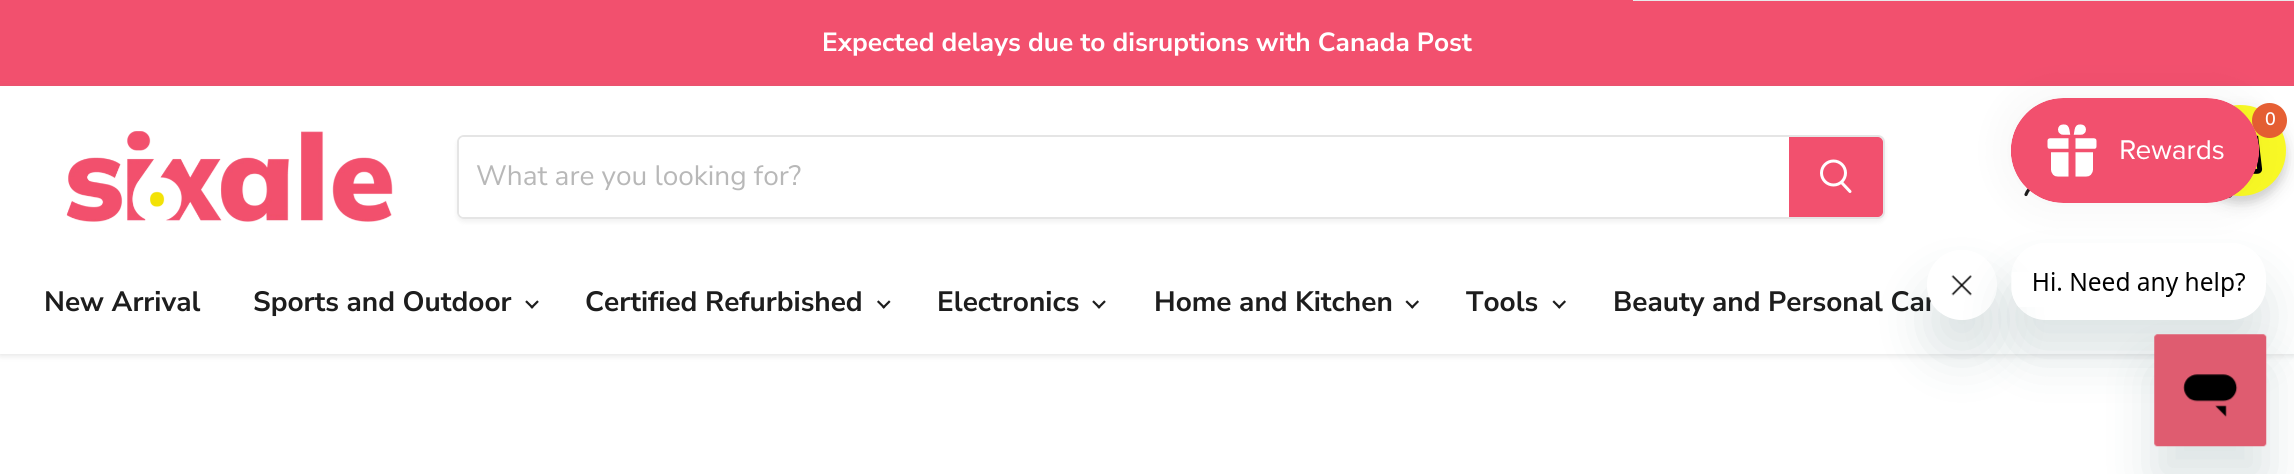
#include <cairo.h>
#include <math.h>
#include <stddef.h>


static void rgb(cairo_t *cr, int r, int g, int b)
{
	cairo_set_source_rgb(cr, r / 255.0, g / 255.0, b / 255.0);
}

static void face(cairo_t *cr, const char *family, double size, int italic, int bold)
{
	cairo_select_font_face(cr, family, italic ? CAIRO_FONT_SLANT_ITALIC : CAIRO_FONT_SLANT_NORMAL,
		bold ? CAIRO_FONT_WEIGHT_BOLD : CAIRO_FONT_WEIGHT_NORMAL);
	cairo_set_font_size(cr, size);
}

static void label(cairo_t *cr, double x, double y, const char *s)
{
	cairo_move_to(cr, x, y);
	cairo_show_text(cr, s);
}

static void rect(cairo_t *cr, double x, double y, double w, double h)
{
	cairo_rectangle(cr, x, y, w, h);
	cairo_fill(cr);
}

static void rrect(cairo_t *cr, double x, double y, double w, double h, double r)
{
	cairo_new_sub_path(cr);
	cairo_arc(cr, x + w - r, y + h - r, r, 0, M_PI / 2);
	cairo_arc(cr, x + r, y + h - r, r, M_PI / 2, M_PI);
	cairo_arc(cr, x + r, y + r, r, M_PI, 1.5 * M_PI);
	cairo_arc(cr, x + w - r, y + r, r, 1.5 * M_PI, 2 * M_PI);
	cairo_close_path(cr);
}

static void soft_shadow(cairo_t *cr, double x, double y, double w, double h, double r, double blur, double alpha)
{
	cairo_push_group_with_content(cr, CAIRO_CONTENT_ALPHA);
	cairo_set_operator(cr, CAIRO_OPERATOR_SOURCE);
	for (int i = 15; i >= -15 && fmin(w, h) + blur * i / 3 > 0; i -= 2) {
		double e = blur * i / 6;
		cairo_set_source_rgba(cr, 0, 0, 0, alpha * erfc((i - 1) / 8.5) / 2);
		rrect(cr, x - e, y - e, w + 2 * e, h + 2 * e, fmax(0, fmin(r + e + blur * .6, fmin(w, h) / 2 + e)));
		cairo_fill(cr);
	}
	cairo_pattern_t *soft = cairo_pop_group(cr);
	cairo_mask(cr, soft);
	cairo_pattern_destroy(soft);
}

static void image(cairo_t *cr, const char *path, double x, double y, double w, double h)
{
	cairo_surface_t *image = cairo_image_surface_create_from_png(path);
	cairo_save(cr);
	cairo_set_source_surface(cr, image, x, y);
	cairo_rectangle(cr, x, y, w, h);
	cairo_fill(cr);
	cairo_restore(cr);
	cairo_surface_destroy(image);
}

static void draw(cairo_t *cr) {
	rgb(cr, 255, 255, 255);
	cairo_paint(cr);
	rgb(cr, 242, 80, 110);
	rect(cr, 0, 0, 2294, 86);
	rgb(cr, 232, 233, 235);
	rect(cr, 1633, 0, 661, 1);
	face(cr, "Nunito Sans", 26.25, 0, 1);
	rgb(cr, 255, 255, 255);
	label(cr, 822, 51, "Expected delays due to disruptions with Canada Post");
	rgb(cr, 128, 128, 128);
	soft_shadow(cr, 0, 88, 2294, 267, 0, 3.5, 0.25);
	rgb(cr, 255, 255, 255);
	rect(cr, 0, 86, 2294, 268);
	image(cr, "image3.png", 2229, 195, 4, 3);
	rgb(cr, 0, 0, 0);
	soft_shadow(cr, 2195, 112, 91, 91, 45.5, 3.5, 0.08);
	soft_shadow(cr, 2196, 112, 91, 91, 45.5, 9, 0.12);
	rgb(cr, 250, 250, 37);
	cairo_arc(cr, 2240.5, 150.5, 45.5, 0, 2 * M_PI);
	cairo_fill(cr);
	image(cr, "image1.png", 2253, 135, 10, 39);
	rgb(cr, 231, 95, 51);
	cairo_arc(cr, 2269.5, 120.5, 17.5, 0, 2 * M_PI);
	cairo_fill(cr);
	cairo_new_path(cr);
	cairo_move_to(cr, 2057, 194.5);
	cairo_curve_to(cr, 2051.5, 180, 2031.5, 180, 2026, 194.5);
	rgb(cr, 29, 29, 29);
	cairo_set_line_width(cr, 3.2);
	cairo_set_line_cap(cr, CAIRO_LINE_CAP_ROUND);
	cairo_set_line_join(cr, CAIRO_LINE_JOIN_ROUND);
	cairo_stroke(cr);
	rgb(cr, 0, 0, 0);
	soft_shadow(cr, 2011, 98, 248, 105, 52.5, 22, 0.05);
	face(cr, "Nunito Sans", 28, 0, 1);
	rgb(cr, 29, 29, 29);
	label(cr, 1613, 311, "Beauty and Personal Car");
	cairo_save(cr);
	cairo_set_fill_rule(cr, CAIRO_FILL_RULE_EVEN_ODD);
	cairo_new_path(cr);
	cairo_move_to(cr, 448, 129);
	cairo_line_to(cr, 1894, 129);
	cairo_line_to(cr, 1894, 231);
	cairo_line_to(cr, 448, 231);
	cairo_close_path(cr);
	cairo_move_to(cr, 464, 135);
	cairo_line_to(cr, 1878, 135);
	cairo_curve_to(cr, 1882, 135, 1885, 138, 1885, 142);
	cairo_line_to(cr, 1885, 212);
	cairo_curve_to(cr, 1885, 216, 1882, 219, 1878, 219);
	cairo_line_to(cr, 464, 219);
	cairo_curve_to(cr, 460, 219, 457, 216, 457, 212);
	cairo_line_to(cr, 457, 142);
	cairo_curve_to(cr, 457, 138, 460, 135, 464, 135);
	cairo_close_path(cr);
	cairo_clip(cr);
	rgb(cr, 128, 128, 128);
	soft_shadow(cr, 457, 138, 1428, 84, 7, 2.5, 0.11);
	cairo_restore(cr);
	rrect(cr, 458, 136, 1426, 82, 6);
	cairo_set_source_rgba(cr, 0.502, 0.502, 0.502, 0.2);
	cairo_set_line_width(cr, 2);
	cairo_set_line_cap(cr, CAIRO_LINE_CAP_BUTT);
	cairo_set_line_join(cr, CAIRO_LINE_JOIN_MITER);
	cairo_stroke(cr);
	rgb(cr, 242, 80, 110);
	cairo_new_path(cr);
	cairo_move_to(cr, 1790, 138);
	cairo_line_to(cr, 1878, 138);
	cairo_curve_to(cr, 1880, 138, 1882, 140, 1882, 142);
	cairo_line_to(cr, 1882, 212);
	cairo_curve_to(cr, 1882, 214, 1880, 216, 1878, 216);
	cairo_line_to(cr, 1790, 216);
	cairo_close_path(cr);
	cairo_fill_preserve(cr);
	cairo_stroke(cr);
	cairo_save(cr);
	cairo_set_fill_rule(cr, CAIRO_FILL_RULE_EVEN_ODD);
	cairo_new_path(cr);
	cairo_move_to(cr, 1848, 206);
	cairo_line_to(cr, 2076, 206);
	cairo_line_to(cr, 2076, 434);
	cairo_line_to(cr, 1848, 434);
	cairo_close_path(cr);
	cairo_move_to(cr, 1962, 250);
	cairo_curve_to(cr, 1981.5, 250, 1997, 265.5, 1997, 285);
	cairo_curve_to(cr, 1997, 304.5, 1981.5, 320, 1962, 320);
	cairo_curve_to(cr, 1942.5, 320, 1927, 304.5, 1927, 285);
	cairo_curve_to(cr, 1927, 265.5, 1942.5, 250, 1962, 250);
	cairo_close_path(cr);
	cairo_clip(cr);
	rgb(cr, 23, 73, 77);
	soft_shadow(cr, 1927, 285, 70, 70, 35, 26, 0.15);
	cairo_restore(cr);
	image(cr, "image8.png", 1928, 275, 44, 37);
	cairo_save(cr);
	cairo_set_fill_rule(cr, CAIRO_FILL_RULE_EVEN_ODD);
	cairo_new_path(cr);
	cairo_move_to(cr, 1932, 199);
	cairo_line_to(cr, 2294, 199);
	cairo_line_to(cr, 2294, 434);
	cairo_line_to(cr, 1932, 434);
	cairo_close_path(cr);
	cairo_move_to(cr, 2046, 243);
	cairo_line_to(cr, 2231, 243);
	cairo_curve_to(cr, 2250.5, 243, 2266, 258.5, 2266, 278);
	cairo_line_to(cr, 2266, 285);
	cairo_curve_to(cr, 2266, 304.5, 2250.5, 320, 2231, 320);
	cairo_line_to(cr, 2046, 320);
	cairo_curve_to(cr, 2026.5, 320, 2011, 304.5, 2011, 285);
	cairo_line_to(cr, 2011, 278);
	cairo_curve_to(cr, 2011, 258.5, 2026.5, 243, 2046, 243);
	cairo_close_path(cr);
	cairo_clip(cr);
	rgb(cr, 23, 73, 77);
	soft_shadow(cr, 2011, 278, 255, 77, 35, 26, 0.15);
	cairo_restore(cr);
	image(cr, "image0.png", 2011, 98, 248, 105);
	face(cr, "Nunito Sans SemiBold", 18, 0, 0);
	rgb(cr, 255, 255, 255);
	label(cr, 2265, 125, "0");
	image(cr, "image2.png", 66, 131, 327, 91);
	cairo_new_path(cr);
	cairo_move_to(cr, 464, 137);
	cairo_line_to(cr, 1789, 137);
	cairo_line_to(cr, 1789, 217);
	cairo_line_to(cr, 464, 217);
	cairo_curve_to(cr, 461, 217, 459, 215, 459, 212);
	cairo_line_to(cr, 459, 142);
	cairo_curve_to(cr, 459, 139, 461, 137, 464, 137);
	cairo_close_path(cr);
	cairo_fill(cr);
	face(cr, "Nunito Sans", 28, 0, 0);
	rgb(cr, 184, 184, 184);
	label(cr, 476, 185, "What are you looking for?");
	cairo_new_path(cr);
	cairo_move_to(cr, 1850, 191.5);
	cairo_line_to(cr, 1842, 183);
	rgb(cr, 255, 255, 255);
	cairo_set_line_width(cr, 3);
	cairo_set_line_cap(cr, CAIRO_LINE_CAP_ROUND);
	cairo_stroke(cr);
	cairo_arc(cr, 1833.5, 173, 12, 0, 2 * M_PI);
	cairo_set_line_cap(cr, CAIRO_LINE_CAP_BUTT);
	cairo_stroke(cr);
	face(cr, "Nunito Sans", 28, 0, 1);
	rgb(cr, 29, 29, 29);
	label(cr, 44, 311, "New Arrival");
	label(cr, 253, 311, "Sports and Outdoor");
	image(cr, "image4.png", 525, 300, 14, 9);
	label(cr, 585, 311, "Certified Refurbished");
	image(cr, "image5.png", 877, 300, 14, 9);
	label(cr, 937, 311, "Electronics");
	image(cr, "image4.png", 1092, 300, 14, 9);
	label(cr, 1154, 311, "Home and Kitchen");
	image(cr, "image6.png", 1405, 300, 14, 9);
	label(cr, 1466, 311, "Tools");
	image(cr, "image6.png", 1552, 300, 14, 9);
	image(cr, "image7.png", 2012, 272, 233, 35);
	rgb(cr, 23, 73, 77);
	soft_shadow(cr, 2154, 369, 112, 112, 4, 26, 0.15);
	image(cr, "image9.png", 2154, 334, 113, 113);
}

int main(void) {
	cairo_surface_t *surface = cairo_image_surface_create(CAIRO_FORMAT_RGB24, 2294, 474);
	cairo_t *cr = cairo_create(surface);
	cairo_font_options_t *options = cairo_font_options_create();
	cairo_font_options_set_hint_metrics(options, CAIRO_HINT_METRICS_OFF);
	cairo_font_options_set_hint_style(options, CAIRO_HINT_STYLE_NONE);
	cairo_set_font_options(cr, options);
	cairo_set_miter_limit(cr, 4);
	draw(cr);
	cairo_surface_write_to_png(surface, "render.png");
	cairo_font_options_destroy(options);
	cairo_destroy(cr);
	cairo_surface_destroy(surface);
	return 0;
}
